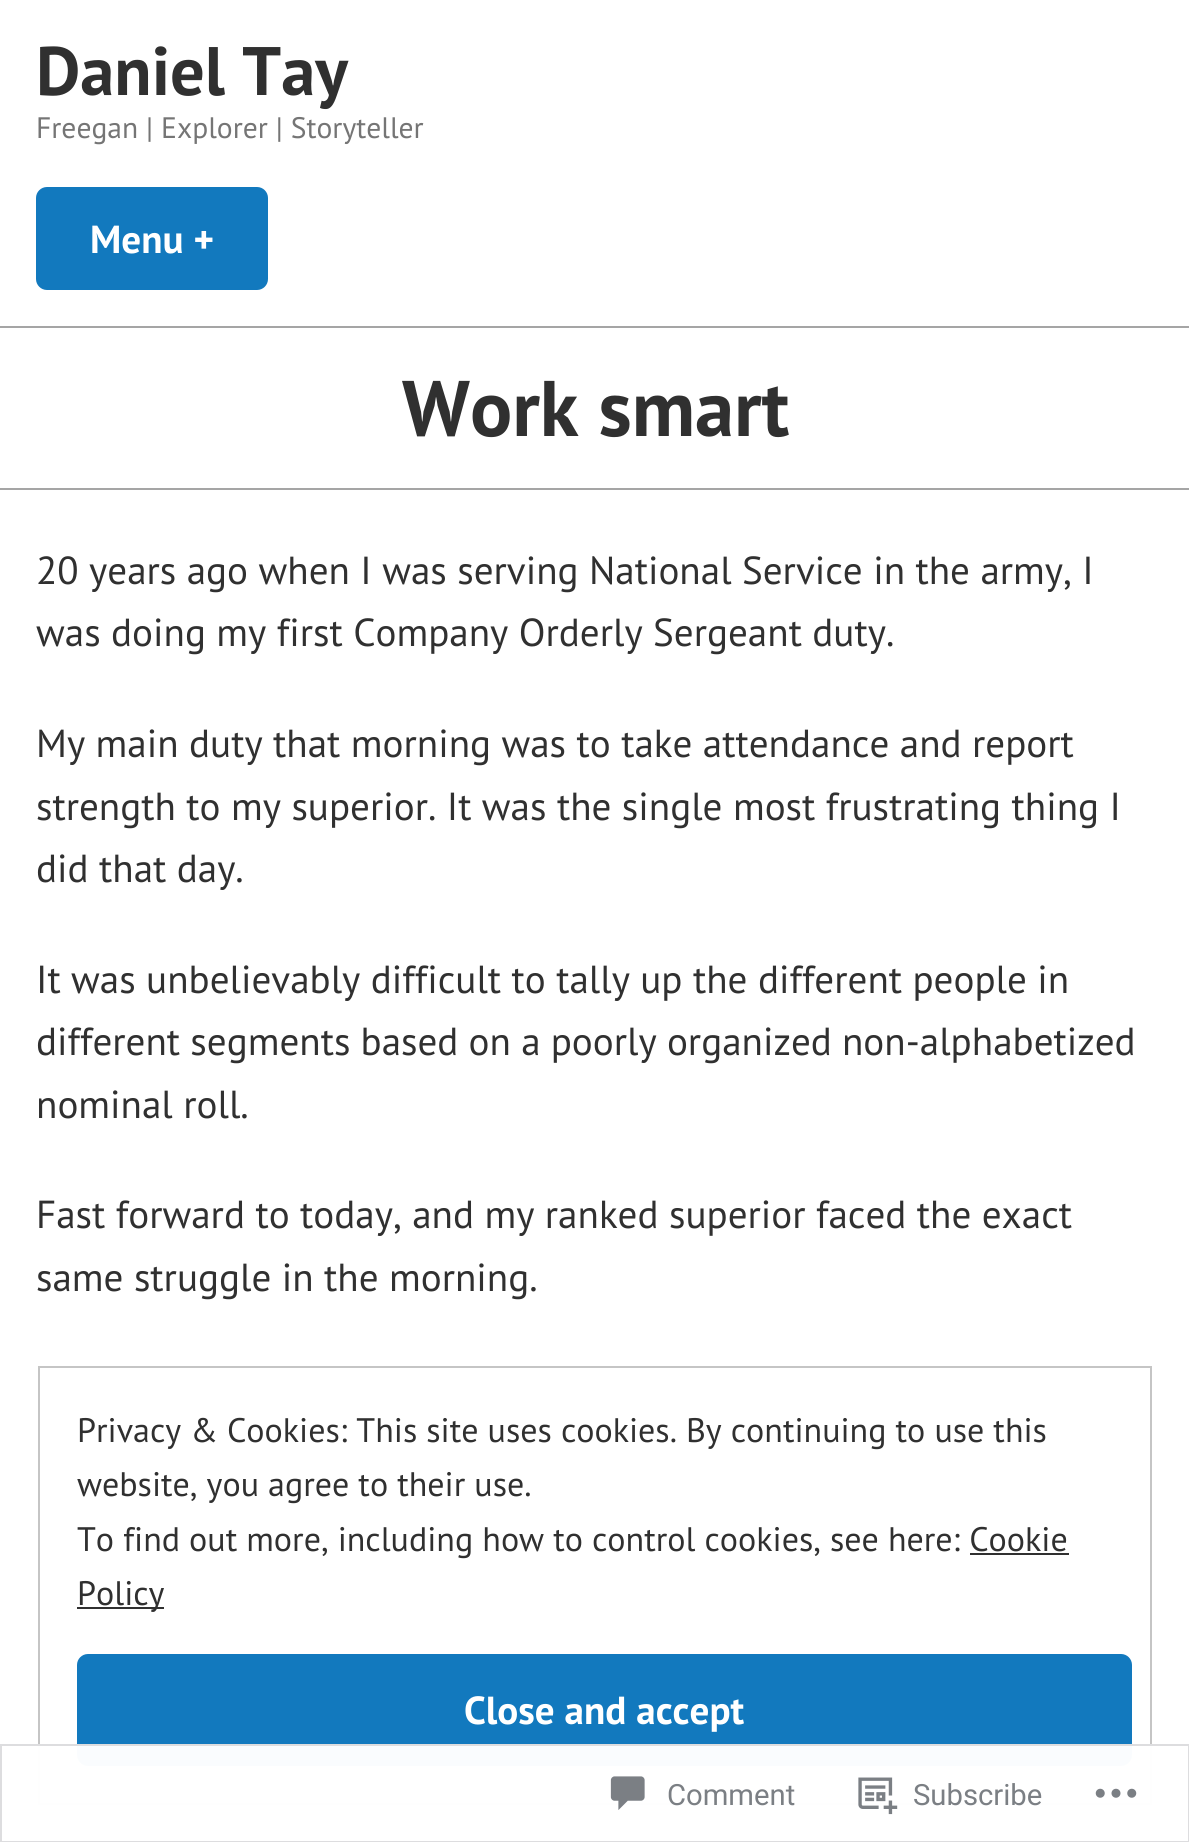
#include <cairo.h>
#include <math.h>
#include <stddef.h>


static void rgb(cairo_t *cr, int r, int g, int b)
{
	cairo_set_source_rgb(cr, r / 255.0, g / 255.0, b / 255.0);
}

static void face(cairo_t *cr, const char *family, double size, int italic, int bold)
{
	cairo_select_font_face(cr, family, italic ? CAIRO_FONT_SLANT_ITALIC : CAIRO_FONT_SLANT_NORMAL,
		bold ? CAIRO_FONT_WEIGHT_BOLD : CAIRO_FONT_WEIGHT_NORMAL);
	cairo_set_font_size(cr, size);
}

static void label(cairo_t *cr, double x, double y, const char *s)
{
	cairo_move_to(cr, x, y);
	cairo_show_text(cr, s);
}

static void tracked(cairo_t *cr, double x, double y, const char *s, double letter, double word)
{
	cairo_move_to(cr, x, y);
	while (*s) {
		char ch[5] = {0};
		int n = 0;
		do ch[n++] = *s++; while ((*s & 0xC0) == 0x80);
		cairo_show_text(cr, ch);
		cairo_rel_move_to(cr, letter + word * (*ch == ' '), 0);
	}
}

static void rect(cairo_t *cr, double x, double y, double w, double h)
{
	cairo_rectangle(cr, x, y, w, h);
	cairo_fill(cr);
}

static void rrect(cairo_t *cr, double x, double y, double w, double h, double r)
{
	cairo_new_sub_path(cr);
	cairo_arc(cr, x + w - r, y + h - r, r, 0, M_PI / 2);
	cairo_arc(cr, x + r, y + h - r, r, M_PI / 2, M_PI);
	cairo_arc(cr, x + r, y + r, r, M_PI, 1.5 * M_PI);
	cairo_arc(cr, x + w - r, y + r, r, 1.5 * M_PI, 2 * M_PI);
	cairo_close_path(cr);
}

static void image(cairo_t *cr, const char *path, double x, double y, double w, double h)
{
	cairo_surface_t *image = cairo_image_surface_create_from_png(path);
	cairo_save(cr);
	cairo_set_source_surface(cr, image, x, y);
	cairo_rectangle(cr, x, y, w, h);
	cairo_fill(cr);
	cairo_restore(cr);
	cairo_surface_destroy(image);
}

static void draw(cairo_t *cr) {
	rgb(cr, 255, 255, 255);
	cairo_paint(cr);
	face(cr, "PT Sans", 68.5, 0, 1);
	rgb(cr, 48, 48, 48);
	label(cr, 36, 95, "Daniel Tay");
	face(cr, "PT Sans", 29.6, 0, 0);
	rgb(cr, 117, 117, 117);
	label(cr, 36, 138, "Freegan | Explorer | Storyteller");
	rgb(cr, 18, 121, 190);
	rrect(cr, 36, 187, 232, 103, 11);
	cairo_fill(cr);
	face(cr, "PT Sans", 39.1, 0, 1);
	rgb(cr, 255, 255, 255);
	label(cr, 90, 253, "Menu +");
	rgb(cr, 165, 165, 165);
	rect(cr, 0, 326, 1189, 2);
	face(cr, "PT Sans", 78.75, 0, 1);
	rgb(cr, 48, 48, 48);
	label(cr, 402, 436, "Work smart");
	rgb(cr, 165, 165, 165);
	rect(cr, 0, 488, 1189, 2);
	face(cr, "PT Sans", 39.1, 0, 0);
	rgb(cr, 48, 48, 48);
	label(cr, 36, 584, "20 years ago when I was serving National Service in the army, I");
	label(cr, 36, 646, "was doing my first Company Orderly Sergeant duty.");
	label(cr, 36, 757, "My main duty that morning was to take attendance and report");
	label(cr, 36, 820, "strength to my superior. It was the single most frustrating thing I");
	label(cr, 36, 882, "did that day.");
	label(cr, 36, 993, "It was unbelievably difficult to tally up the different people in");
	tracked(cr, 36, 1055, "different segments based on a poorly organized non-alphabetized", 0, -0.25);
	label(cr, 36, 1118, "nominal roll.");
	label(cr, 36, 1228, "Fast forward to today, and my ranked superior faced the exact");
	label(cr, 36, 1291, "same struggle in the morning.");
	cairo_rectangle(cr, 39, 1367, 1112, 437);
	rgb(cr, 197, 197, 197);
	cairo_stroke(cr);
	face(cr, "PT Sans", 34, 0, 0);
	rgb(cr, 48, 48, 48);
	label(cr, 77, 1442, "Privacy & Cookies: This site uses cookies. By continuing to use this");
	label(cr, 77, 1496, "website, you agree to their use.");
	label(cr, 77, 1551, "To find out more, including how to control cookies, see here: Cookie");
	rect(cr, 77, 1607, 87, 2);
	label(cr, 77, 1605, "Policy");
	rect(cr, 970, 1553, 99, 2);
	rgb(cr, 18, 121, 190);
	rrect(cr, 77, 1654, 1055, 112, 11);
	cairo_fill(cr);
	face(cr, "PT Sans", 39.1, 0, 1);
	rgb(cr, 255, 255, 255);
	label(cr, 464, 1724, "Close and accept");
	cairo_set_source_rgba(cr, 1, 1, 1, 0.98);
	rect(cr, 38, 1744, 1114, 61);
	cairo_rectangle(cr, 1, 1745, 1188, 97);
	cairo_set_source_rgba(cr, 0.863, 0.863, 0.871, 0.98);
	cairo_stroke(cr);
	image(cr, "image0.png", 610, 1776, 35, 34);
	face(cr, "Roboto", 29.25, 0, 0);
	rgb(cr, 123, 127, 132);
	label(cr, 667, 1805, "Comment");
	image(cr, "image1.png", 858, 1777, 40, 38);
	label(cr, 913, 1805, "Subscribe");
	image(cr, "image2.png", 1095, 1788, 42, 10);
}

int main(void) {
	cairo_surface_t *surface = cairo_image_surface_create(CAIRO_FORMAT_RGB24, 1189, 1842);
	cairo_t *cr = cairo_create(surface);
	cairo_font_options_t *options = cairo_font_options_create();
	cairo_font_options_set_hint_metrics(options, CAIRO_HINT_METRICS_OFF);
	cairo_font_options_set_hint_style(options, CAIRO_HINT_STYLE_NONE);
	cairo_set_font_options(cr, options);
	cairo_set_miter_limit(cr, 4);
	draw(cr);
	cairo_surface_write_to_png(surface, "render.png");
	cairo_font_options_destroy(options);
	cairo_destroy(cr);
	cairo_surface_destroy(surface);
	return 0;
}
